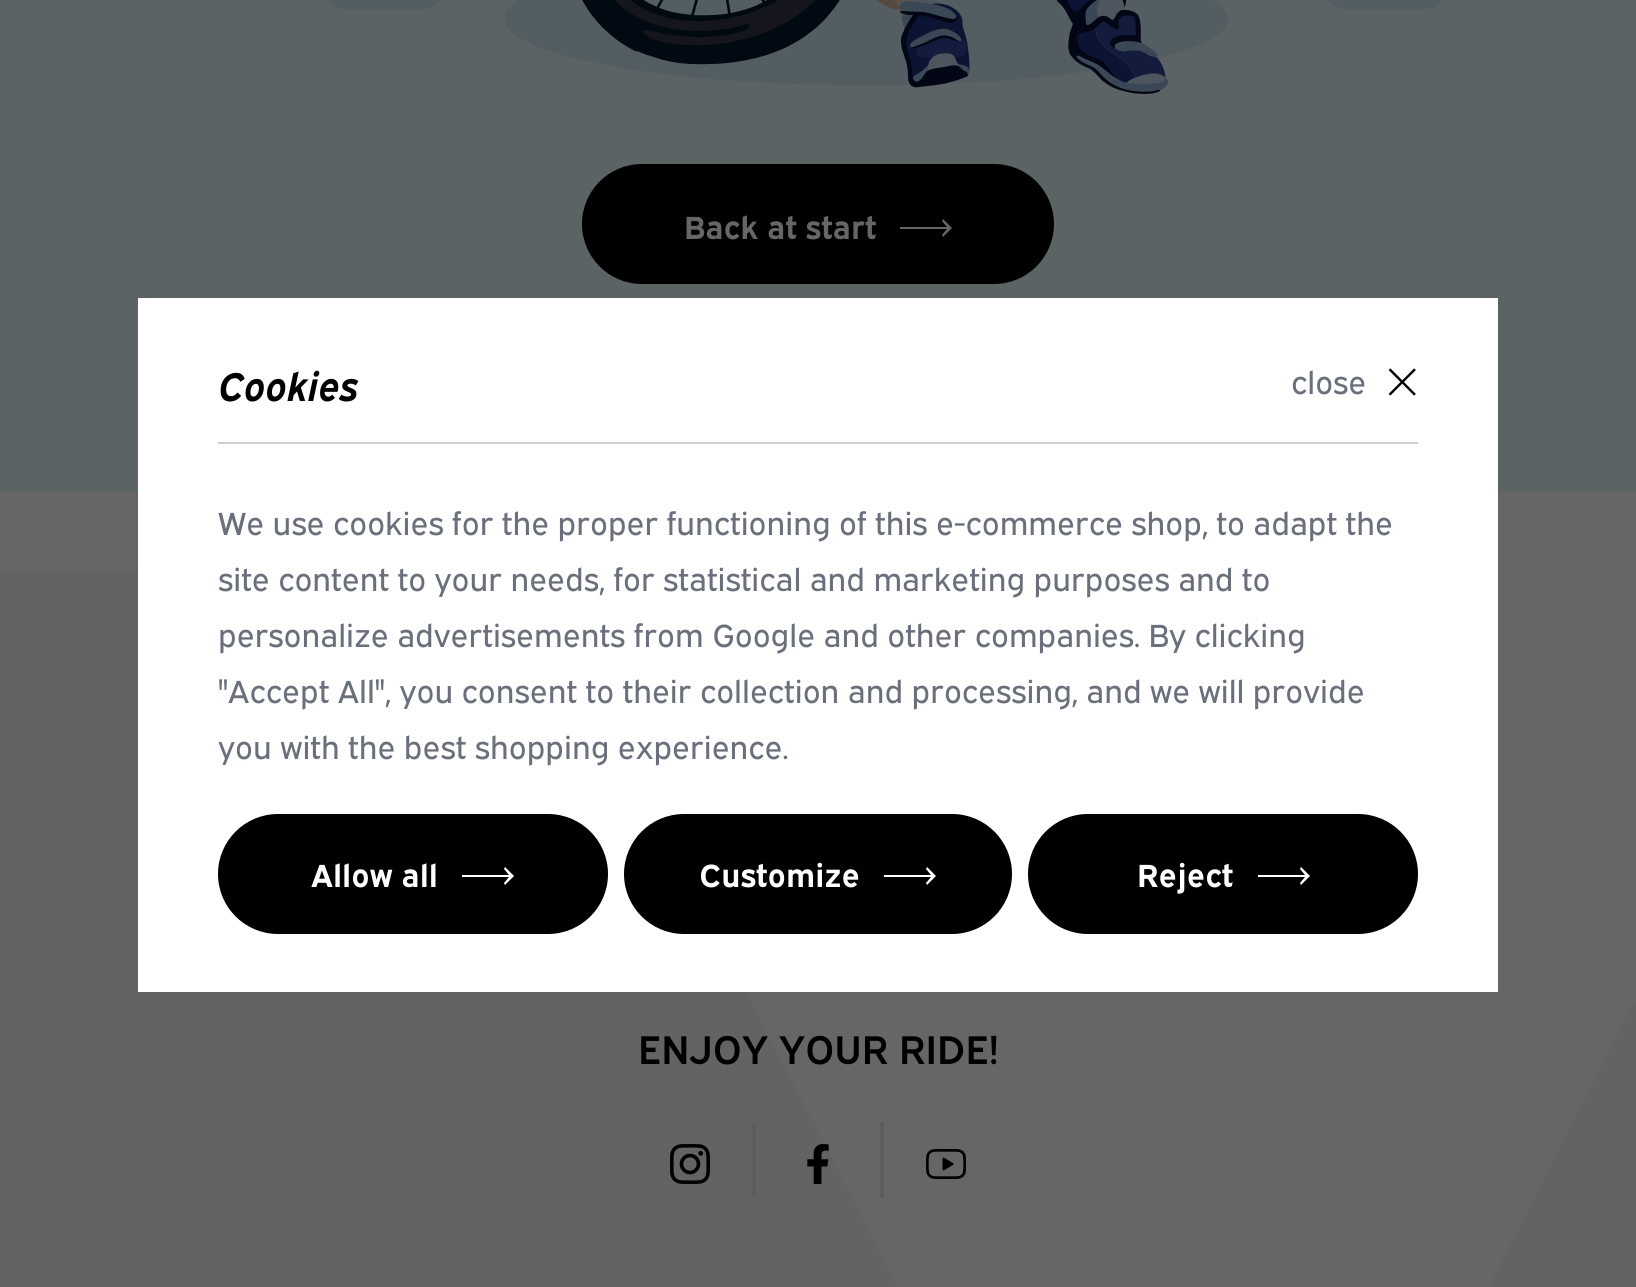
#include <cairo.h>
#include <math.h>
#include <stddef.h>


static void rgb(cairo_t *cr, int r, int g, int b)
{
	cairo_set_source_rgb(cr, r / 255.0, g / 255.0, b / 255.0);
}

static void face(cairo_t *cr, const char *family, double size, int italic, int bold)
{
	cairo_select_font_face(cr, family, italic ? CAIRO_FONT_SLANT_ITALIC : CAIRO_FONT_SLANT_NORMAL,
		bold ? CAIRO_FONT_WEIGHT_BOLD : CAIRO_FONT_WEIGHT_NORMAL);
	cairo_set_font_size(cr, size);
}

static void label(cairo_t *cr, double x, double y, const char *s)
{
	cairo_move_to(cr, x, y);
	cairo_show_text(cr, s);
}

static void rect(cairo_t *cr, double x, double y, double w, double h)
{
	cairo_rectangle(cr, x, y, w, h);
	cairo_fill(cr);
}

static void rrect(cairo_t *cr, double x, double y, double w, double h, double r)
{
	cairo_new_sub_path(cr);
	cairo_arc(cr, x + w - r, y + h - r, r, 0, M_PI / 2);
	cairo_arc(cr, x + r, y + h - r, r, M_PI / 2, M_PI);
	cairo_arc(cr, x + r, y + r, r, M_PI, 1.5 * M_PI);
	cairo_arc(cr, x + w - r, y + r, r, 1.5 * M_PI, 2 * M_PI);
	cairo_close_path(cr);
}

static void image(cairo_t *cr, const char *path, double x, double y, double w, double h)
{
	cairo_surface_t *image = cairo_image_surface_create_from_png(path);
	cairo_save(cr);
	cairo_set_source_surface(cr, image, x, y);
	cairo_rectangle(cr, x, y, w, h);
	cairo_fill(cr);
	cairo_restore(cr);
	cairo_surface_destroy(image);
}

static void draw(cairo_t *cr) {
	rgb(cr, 102, 102, 102);
	cairo_paint(cr);
	rgb(cr, 92, 99, 100);
	rect(cr, 0, 0, 1636, 492);
	image(cr, "image0.png", 326, 0, 1117, 94);
	rgb(cr, 0, 0, 0);
	rrect(cr, 583, 165, 470, 118, 59);
	cairo_fill_preserve(cr);
	cairo_stroke(cr);
	face(cr, "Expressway", 32, 0, 1);
	rgb(cr, 102, 102, 102);
	label(cr, 684, 239, "Back at start");
	cairo_new_path(cr);
	cairo_move_to(cr, 942, 221);
	cairo_line_to(cr, 947, 227);
	cairo_line_to(cr, 900, 227);
	cairo_line_to(cr, 900, 229);
	cairo_line_to(cr, 947, 229);
	cairo_line_to(cr, 942, 235);
	cairo_line_to(cr, 943, 237);
	cairo_line_to(cr, 952, 228);
	cairo_line_to(cr, 943, 219);
	cairo_close_path(cr);
	cairo_fill(cr);
	rgb(cr, 99, 99, 99);
	rect(cr, 0, 572, 1636, 715);
	cairo_save(cr);
	cairo_rectangle(cr, 500, 572, 1136, 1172);
	cairo_clip(cr);
	rgb(cr, 102, 102, 102);
	cairo_new_path(cr);
	cairo_move_to(cr, 625, 352);
	cairo_curve_to(cr, 512, 352, 467, 445, 526, 559);
	cairo_line_to(cr, 1087, 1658);
	cairo_curve_to(cr, 1145, 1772, 1240, 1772, 1299, 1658);
	cairo_line_to(cr, 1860, 559);
	cairo_curve_to(cr, 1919, 445, 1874, 352, 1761, 352);
	cairo_close_path(cr);
	cairo_fill(cr);
	cairo_restore(cr);
	rgb(cr, 255, 255, 255);
	rect(cr, 138, 298, 1360, 694);
	rgb(cr, 206, 206, 206);
	rect(cr, 218, 442, 1200, 2);
	face(cr, "Expressway", 40, 1, 1);
	rgb(cr, 0, 0, 0);
	label(cr, 218, 401, "Cookies");
	face(cr, "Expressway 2", 32, 0, 0);
	rgb(cr, 106, 111, 124);
	label(cr, 1291, 394, "close");
	image(cr, "image1.png", 1388, 368, 28, 28);
	label(cr, 218, 535, "We use cookies for the proper functioning of this e-commerce shop, to adapt the");
	label(cr, 218, 591, "site content to your needs, for statistical and marketing purposes and to");
	label(cr, 218, 647, "personalize advertisements from Google and other companies. By clicking");
	label(cr, 218, 703, "\"Accept All\", you consent to their collection and processing, and we will provide");
	label(cr, 218, 759, "you with the best shopping experience.");
	rgb(cr, 0, 0, 0);
	rrect(cr, 219, 815, 388, 118, 59);
	cairo_fill_preserve(cr);
	cairo_stroke(cr);
	face(cr, "Expressway", 32, 0, 1);
	rgb(cr, 255, 255, 255);
	label(cr, 311, 887, "Allow all");
	cairo_new_path(cr);
	cairo_move_to(cr, 504, 869);
	cairo_line_to(cr, 509, 875);
	cairo_line_to(cr, 462, 875);
	cairo_line_to(cr, 462, 877);
	cairo_line_to(cr, 509, 877);
	cairo_line_to(cr, 504, 883);
	cairo_line_to(cr, 505, 885);
	cairo_line_to(cr, 514, 876);
	cairo_line_to(cr, 505, 867);
	cairo_close_path(cr);
	cairo_fill(cr);
	rgb(cr, 0, 0, 0);
	rrect(cr, 625, 815, 386, 118, 59);
	cairo_fill_preserve(cr);
	cairo_stroke(cr);
	rgb(cr, 255, 255, 255);
	label(cr, 699, 887, "Customize");
	cairo_new_path(cr);
	cairo_move_to(cr, 926, 869);
	cairo_line_to(cr, 931, 875);
	cairo_line_to(cr, 884, 875);
	cairo_line_to(cr, 884, 877);
	cairo_line_to(cr, 931, 877);
	cairo_line_to(cr, 926, 883);
	cairo_line_to(cr, 927, 885);
	cairo_line_to(cr, 936, 876);
	cairo_line_to(cr, 927, 867);
	cairo_close_path(cr);
	cairo_fill(cr);
	rgb(cr, 0, 0, 0);
	rrect(cr, 1029, 815, 388, 118, 59);
	cairo_fill_preserve(cr);
	cairo_stroke(cr);
	rgb(cr, 255, 255, 255);
	label(cr, 1137, 887, "Reject");
	cairo_new_path(cr);
	cairo_move_to(cr, 1300, 869);
	cairo_line_to(cr, 1305, 875);
	cairo_line_to(cr, 1258, 875);
	cairo_line_to(cr, 1258, 877);
	cairo_line_to(cr, 1305, 877);
	cairo_line_to(cr, 1300, 883);
	cairo_line_to(cr, 1301, 885);
	cairo_line_to(cr, 1310, 876);
	cairo_line_to(cr, 1301, 867);
	cairo_close_path(cr);
	cairo_fill(cr);
	face(cr, "Expressway", 40, 0, 0);
	rgb(cr, 0, 0, 0);
	label(cr, 638, 1064, "ENJOY YOUR RIDE!");
	image(cr, "image2.png", 670, 1144, 40, 40);
	rgb(cr, 94, 93, 93);
	rect(cr, 752, 1122, 4, 76);
	image(cr, "image3.png", 807, 1144, 22, 40);
	rect(cr, 880, 1122, 4, 76);
	image(cr, "image4.png", 926, 1148, 40, 32);
}

int main(void) {
	cairo_surface_t *surface = cairo_image_surface_create(CAIRO_FORMAT_RGB24, 1636, 1287);
	cairo_t *cr = cairo_create(surface);
	cairo_font_options_t *options = cairo_font_options_create();
	cairo_font_options_set_hint_metrics(options, CAIRO_HINT_METRICS_OFF);
	cairo_font_options_set_hint_style(options, CAIRO_HINT_STYLE_NONE);
	cairo_set_font_options(cr, options);
	cairo_set_miter_limit(cr, 4);
	draw(cr);
	cairo_surface_write_to_png(surface, "render.png");
	cairo_font_options_destroy(options);
	cairo_destroy(cr);
	cairo_surface_destroy(surface);
	return 0;
}
